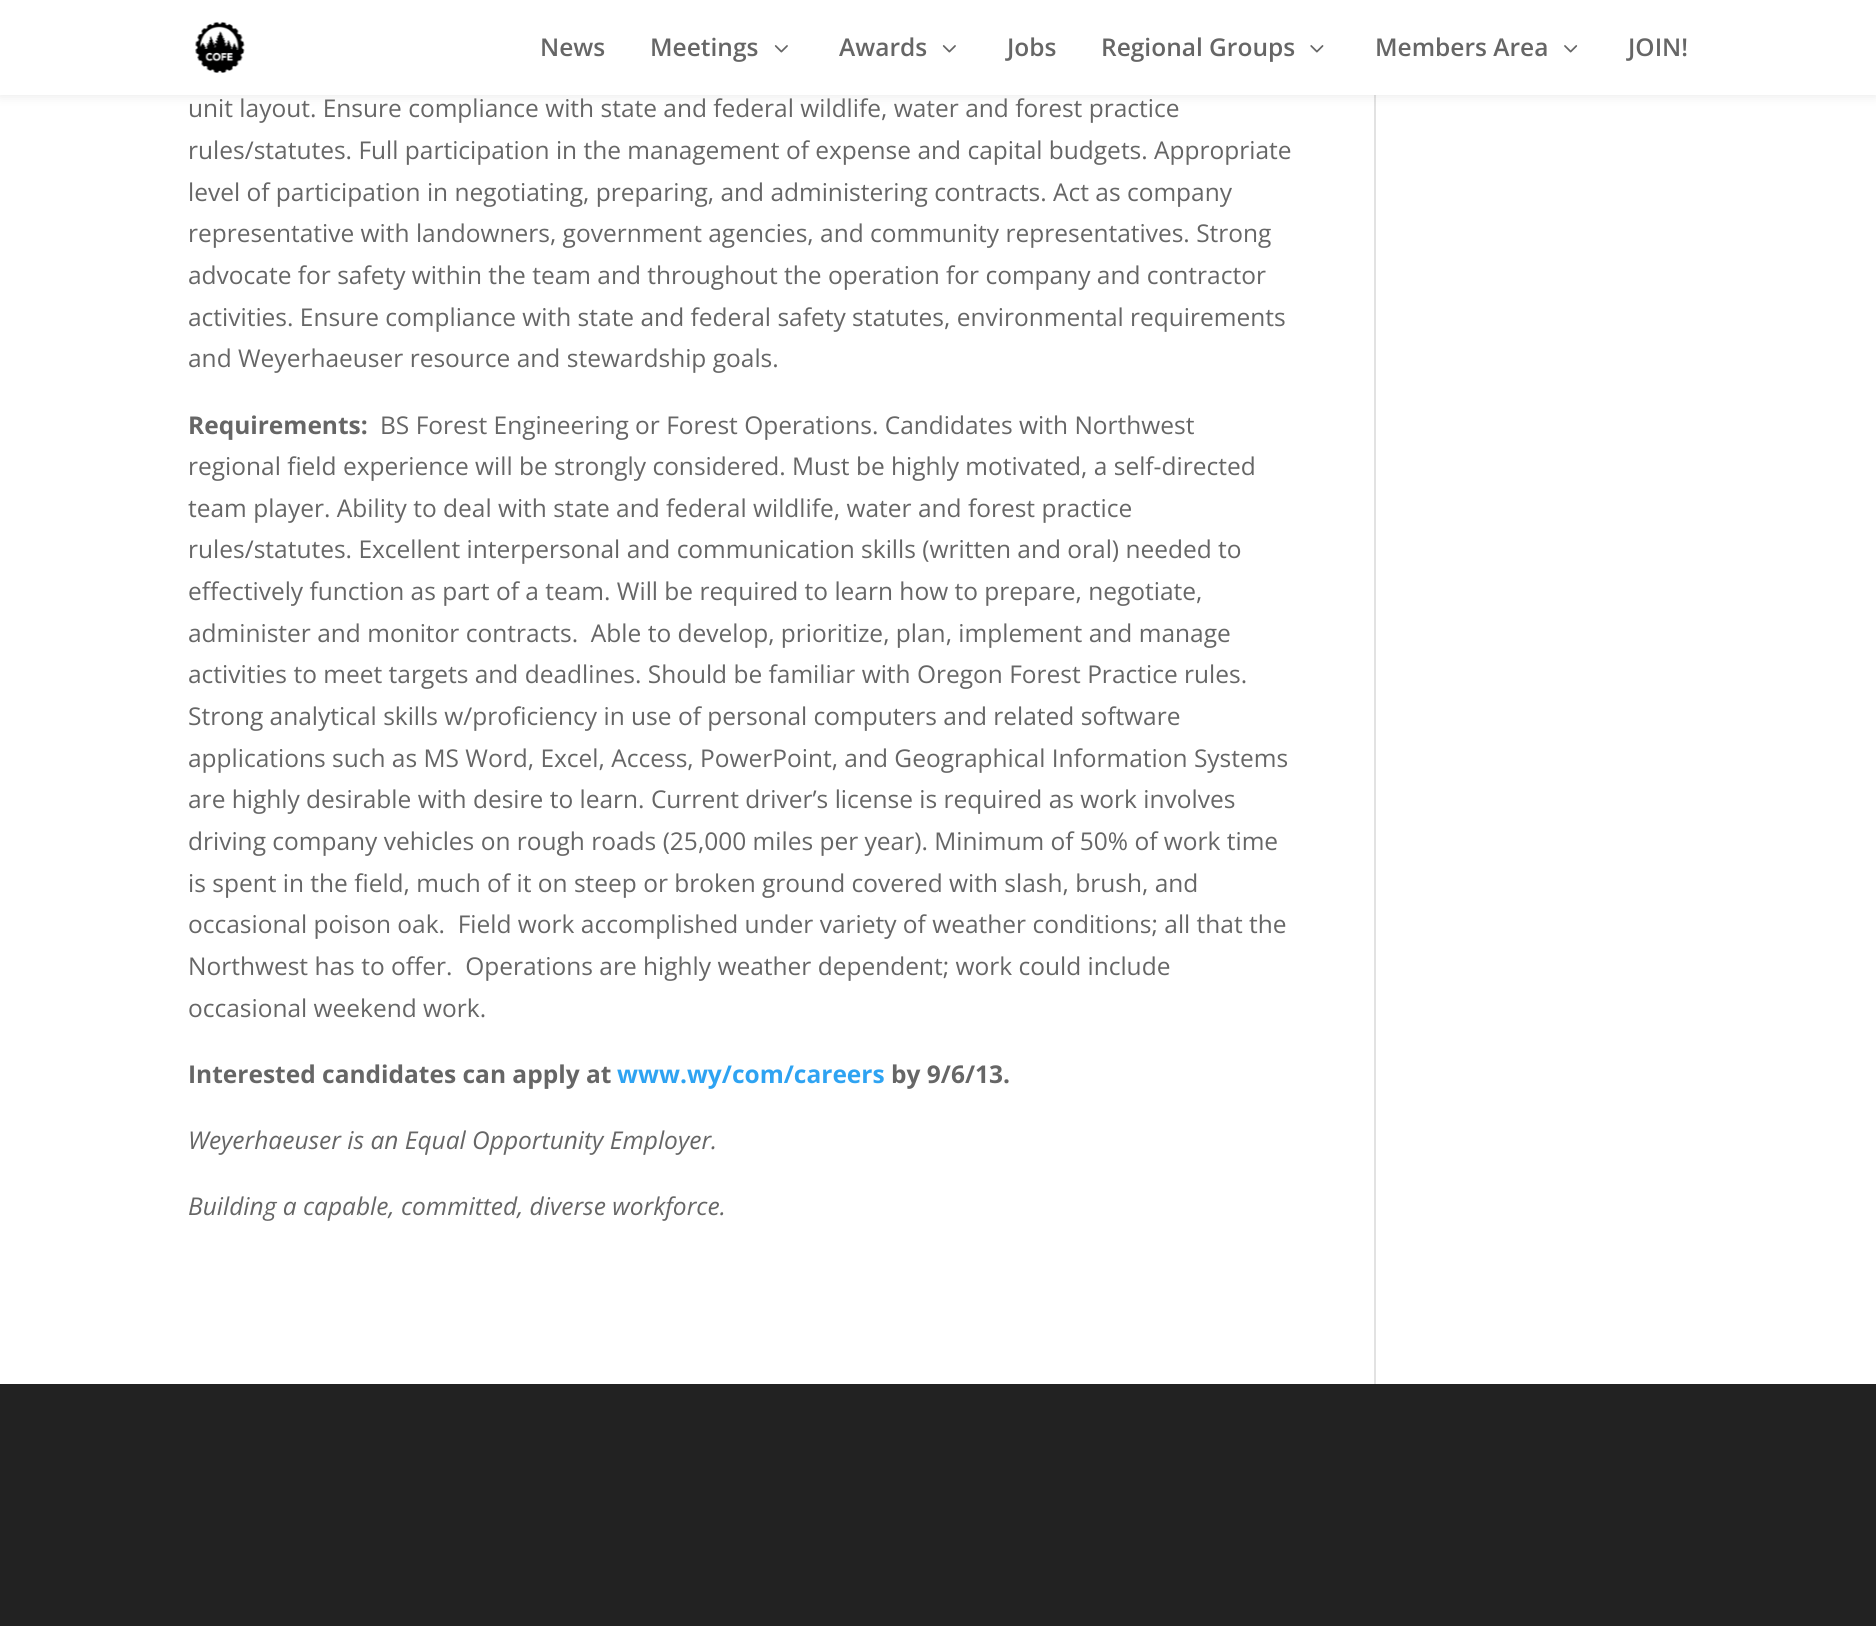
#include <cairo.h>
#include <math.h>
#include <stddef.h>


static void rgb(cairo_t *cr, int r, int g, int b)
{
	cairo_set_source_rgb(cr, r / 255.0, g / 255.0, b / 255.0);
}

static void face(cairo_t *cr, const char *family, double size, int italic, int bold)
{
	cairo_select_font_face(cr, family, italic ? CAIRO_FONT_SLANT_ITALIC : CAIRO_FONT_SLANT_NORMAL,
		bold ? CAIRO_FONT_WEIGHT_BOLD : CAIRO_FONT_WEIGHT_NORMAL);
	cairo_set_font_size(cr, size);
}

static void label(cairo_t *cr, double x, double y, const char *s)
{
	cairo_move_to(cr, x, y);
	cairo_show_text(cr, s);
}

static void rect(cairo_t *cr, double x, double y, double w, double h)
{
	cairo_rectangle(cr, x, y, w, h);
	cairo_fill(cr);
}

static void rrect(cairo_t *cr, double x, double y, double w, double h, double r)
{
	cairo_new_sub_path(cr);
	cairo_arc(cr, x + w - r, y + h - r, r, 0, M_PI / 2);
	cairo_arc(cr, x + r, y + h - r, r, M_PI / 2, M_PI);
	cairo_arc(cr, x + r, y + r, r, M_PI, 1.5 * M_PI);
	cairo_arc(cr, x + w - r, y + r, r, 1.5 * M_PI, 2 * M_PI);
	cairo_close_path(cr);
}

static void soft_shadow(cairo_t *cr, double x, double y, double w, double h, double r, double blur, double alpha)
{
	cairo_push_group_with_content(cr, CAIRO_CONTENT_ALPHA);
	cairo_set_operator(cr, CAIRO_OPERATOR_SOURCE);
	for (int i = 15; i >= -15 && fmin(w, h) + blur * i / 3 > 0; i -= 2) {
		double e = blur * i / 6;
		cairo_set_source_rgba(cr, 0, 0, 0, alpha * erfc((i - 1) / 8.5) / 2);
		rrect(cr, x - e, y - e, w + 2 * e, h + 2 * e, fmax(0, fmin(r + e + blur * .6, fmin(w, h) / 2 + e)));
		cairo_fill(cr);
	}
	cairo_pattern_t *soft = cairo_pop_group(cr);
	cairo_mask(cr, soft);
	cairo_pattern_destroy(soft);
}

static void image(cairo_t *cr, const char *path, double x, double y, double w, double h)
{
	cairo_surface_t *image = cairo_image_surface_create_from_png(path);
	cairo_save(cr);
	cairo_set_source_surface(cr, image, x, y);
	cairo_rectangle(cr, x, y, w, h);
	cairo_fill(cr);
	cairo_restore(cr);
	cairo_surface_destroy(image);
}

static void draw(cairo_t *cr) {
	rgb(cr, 255, 255, 255);
	cairo_paint(cr);
	rgb(cr, 226, 226, 226);
	rect(cr, 1374, 95, 2, 1289);
	rgb(cr, 0, 0, 0);
	soft_shadow(cr, 0, 0, 1876, 95, 0, 6, 0.1);
	rgb(cr, 255, 255, 255);
	rect(cr, 0, 0, 1876, 95);
	image(cr, "image0.png", 195, 21, 50, 52);
	face(cr, "Open Sans SemiBold", 24.5, 0, 0);
	rgb(cr, 102, 102, 102);
	label(cr, 540, 56, "News");
	label(cr, 650, 56, "Meetings");
	image(cr, "image1.png", 774, 45, 14, 8);
	label(cr, 839, 56, "Awards");
	image(cr, "image1.png", 942, 45, 14, 8);
	label(cr, 1007, 56, "Jobs");
	label(cr, 1101, 56, "Regional Groups");
	image(cr, "image2.png", 1310, 45, 14, 8);
	label(cr, 1375, 56, "Members Area");
	image(cr, "image3.png", 1564, 45, 14, 8);
	label(cr, 1628, 56, "JOIN!");
	face(cr, "Open Sans", 24.5, 0, 0);
	label(cr, 188, 117, "unit layout. Ensure compliance with state and federal wildlife, water and forest practice");
	label(cr, 188, 159, "rules/statutes. Full participation in the management of expense and capital budgets. Appropriate");
	label(cr, 188, 201, "level of participation in negotiating, preparing, and administering contracts. Act as company");
	label(cr, 188, 242, "representative with landowners, government agencies, and community representatives. Strong");
	label(cr, 188, 284, "advocate for safety within the team and throughout the operation for company and contractor");
	label(cr, 188, 326, "activities. Ensure compliance with state and federal safety statutes, environmental requirements");
	label(cr, 188, 367, "and Weyerhaeuser resource and stewardship goals.");
	face(cr, "Open Sans", 24.5, 0, 1);
	label(cr, 188, 434, "Requirements:");
	face(cr, "Open Sans", 24.5, 0, 0);
	label(cr, 380, 434, "BS Forest Engineering or Forest Operations. Candidates with Northwest");
	label(cr, 188, 475, "regional field experience will be strongly considered. Must be highly motivated, a self-directed");
	label(cr, 188, 517, "team player. Ability to deal with state and federal wildlife, water and forest practice");
	label(cr, 188, 558, "rules/statutes. Excellent interpersonal and communication skills (written and oral) needed to");
	label(cr, 188, 600, "effectively function as part of a team. Will be required to learn how to prepare, negotiate,");
	label(cr, 188, 642, "administer and monitor contracts.  Able to develop, prioritize, plan, implement and manage");
	label(cr, 188, 683, "activities to meet targets and deadlines. Should be familiar with Oregon Forest Practice rules.");
	label(cr, 188, 725, "Strong analytical skills w/proficiency in use of personal computers and related software");
	label(cr, 188, 767, "applications such as MS Word, Excel, Access, PowerPoint, and Geographical Information Systems");
	label(cr, 188, 808, "are highly desirable with desire to learn. Current driver’s license is required as work involves");
	label(cr, 188, 850, "driving company vehicles on rough roads (25,000 miles per year). Minimum of 50% of work time");
	label(cr, 188, 892, "is spent in the field, much of it on steep or broken ground covered with slash, brush, and");
	label(cr, 188, 933, "occasional poison oak.  Field work accomplished under variety of weather conditions; all that the");
	label(cr, 188, 975, "Northwest has to offer.  Operations are highly weather dependent; work could include");
	label(cr, 188, 1017, "occasional weekend work.");
	face(cr, "Open Sans", 24.5, 0, 1);
	label(cr, 188, 1083, "Interested candidates can apply at");
	rgb(cr, 46, 163, 242);
	label(cr, 617, 1083, "www.wy/com/careers");
	rgb(cr, 102, 102, 102);
	label(cr, 891, 1083, "by 9/6/13.");
	face(cr, "Open Sans", 24.5, 1, 0);
	label(cr, 188, 1149, "Weyerhaeuser is an Equal Opportunity Employer.");
	label(cr, 188, 1215, "Building a capable, committed, diverse workforce.");
	rgb(cr, 34, 34, 34);
	rect(cr, 0, 1384, 1876, 242);
}

int main(void) {
	cairo_surface_t *surface = cairo_image_surface_create(CAIRO_FORMAT_RGB24, 1876, 1626);
	cairo_t *cr = cairo_create(surface);
	cairo_font_options_t *options = cairo_font_options_create();
	cairo_font_options_set_hint_metrics(options, CAIRO_HINT_METRICS_OFF);
	cairo_font_options_set_hint_style(options, CAIRO_HINT_STYLE_NONE);
	cairo_set_font_options(cr, options);
	cairo_set_miter_limit(cr, 4);
	draw(cr);
	cairo_surface_write_to_png(surface, "render.png");
	cairo_font_options_destroy(options);
	cairo_destroy(cr);
	cairo_surface_destroy(surface);
	return 0;
}
